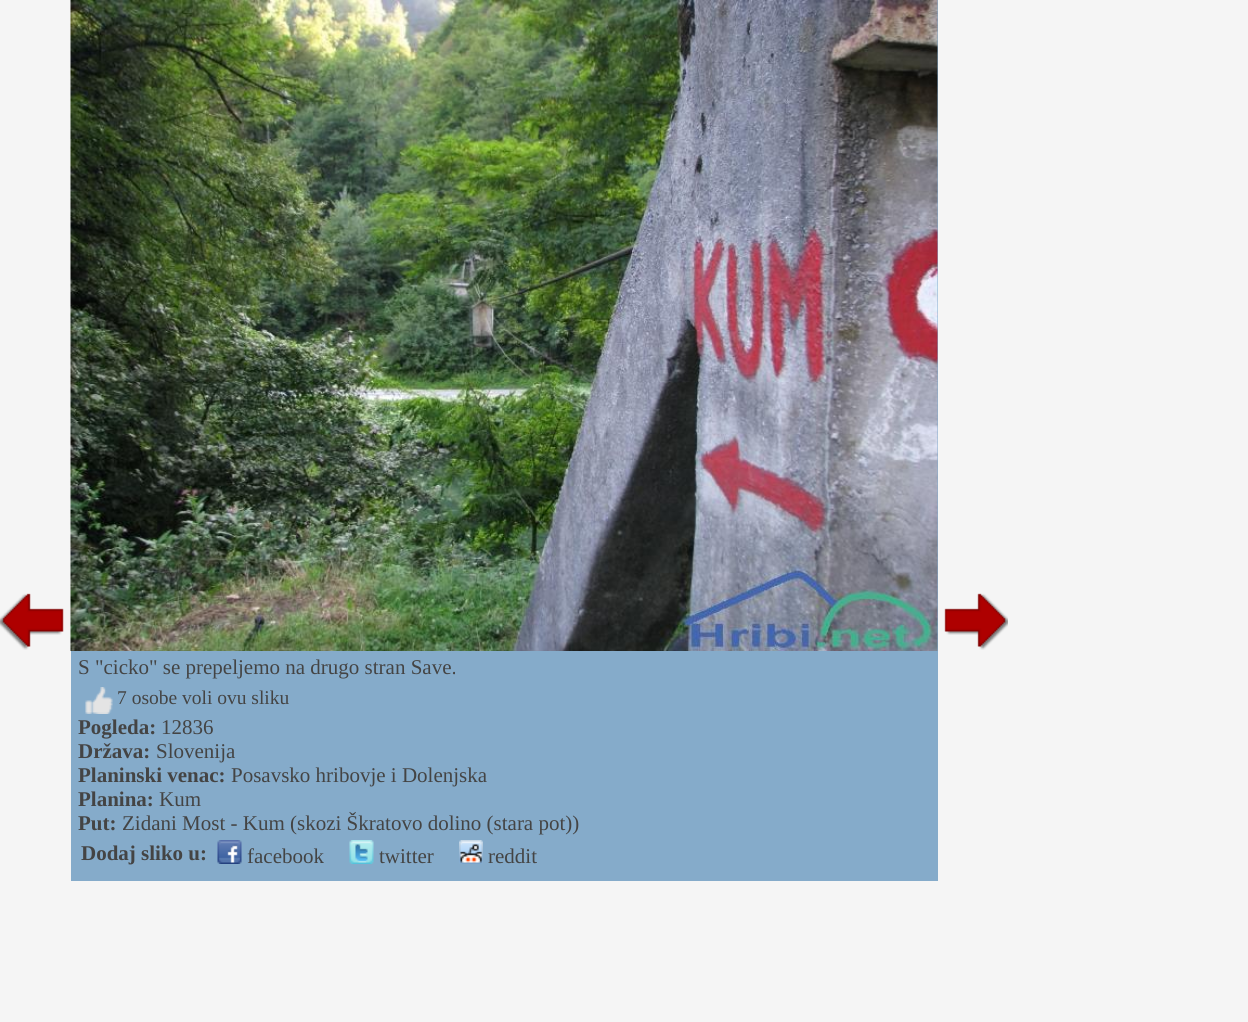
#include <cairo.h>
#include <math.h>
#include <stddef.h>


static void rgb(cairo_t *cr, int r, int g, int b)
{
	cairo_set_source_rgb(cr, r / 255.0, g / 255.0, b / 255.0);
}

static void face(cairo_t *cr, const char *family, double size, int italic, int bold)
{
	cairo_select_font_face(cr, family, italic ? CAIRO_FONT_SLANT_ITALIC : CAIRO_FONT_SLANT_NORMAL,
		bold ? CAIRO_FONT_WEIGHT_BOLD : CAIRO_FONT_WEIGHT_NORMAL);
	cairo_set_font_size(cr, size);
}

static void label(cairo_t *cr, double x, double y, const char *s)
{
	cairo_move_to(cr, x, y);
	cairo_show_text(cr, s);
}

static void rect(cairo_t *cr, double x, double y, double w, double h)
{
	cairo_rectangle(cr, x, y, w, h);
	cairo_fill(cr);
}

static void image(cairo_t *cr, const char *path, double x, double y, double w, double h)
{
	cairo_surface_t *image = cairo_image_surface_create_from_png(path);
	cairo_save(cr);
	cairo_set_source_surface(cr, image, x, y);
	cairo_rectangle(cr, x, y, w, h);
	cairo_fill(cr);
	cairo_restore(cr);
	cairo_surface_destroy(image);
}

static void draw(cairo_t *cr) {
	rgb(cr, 245, 245, 245);
	cairo_paint(cr);
	image(cr, "image0.png", 0, 593, 64, 57);
	image(cr, "image1.png", 944, 593, 64, 57);
	rgb(cr, 133, 171, 202);
	rect(cr, 71, 0, 867, 881);
	image(cr, "image2.png", 70, 0, 868, 651);
	face(cr, "Liberation Serif", 21, 0, 0);
	rgb(cr, 68, 68, 68);
	label(cr, 78, 674, "S \"cicko\" se prepeljemo na drugo stran Save.");
	image(cr, "image3.png", 85, 687, 28, 27);
	face(cr, "Liberation Serif", 19.5, 0, 0);
	label(cr, 117, 704, "7 osobe voli ovu sliku");
	face(cr, "Liberation Serif", 21, 0, 1);
	label(cr, 78, 734, "Pogleda:");
	face(cr, "Liberation Serif", 21, 0, 0);
	label(cr, 161, 734, "12836");
	face(cr, "Liberation Serif", 21, 0, 1);
	label(cr, 78, 758, "Država:");
	face(cr, "Liberation Serif", 21, 0, 0);
	label(cr, 156, 758, "Slovenija");
	face(cr, "Liberation Serif", 21, 0, 1);
	label(cr, 78, 782, "Planinski venac:");
	face(cr, "Liberation Serif", 21, 0, 0);
	label(cr, 231, 782, "Posavsko hribovje i Dolenjska");
	face(cr, "Liberation Serif", 21, 0, 1);
	label(cr, 78, 806, "Planina:");
	face(cr, "Liberation Serif", 21, 0, 0);
	label(cr, 159, 806, "Kum");
	face(cr, "Liberation Serif", 21, 0, 1);
	label(cr, 78, 830, "Put:");
	face(cr, "Liberation Serif", 21, 0, 0);
	label(cr, 122, 830, "Zidani Most - Kum (skozi Škratovo dolino (stara pot))");
	face(cr, "Liberation Serif", 21, 0, 1);
	label(cr, 81, 860, "Dodaj sliko u:");
	image(cr, "image4.png", 217, 840, 25, 24);
	face(cr, "Liberation Serif", 21, 0, 0);
	label(cr, 247, 863, "facebook");
	image(cr, "image5.png", 349, 840, 25, 24);
	label(cr, 379, 863, "twitter");
	image(cr, "image6.png", 459, 840, 24, 24);
	label(cr, 488, 863, "reddit");
}

int main(void) {
	cairo_surface_t *surface = cairo_image_surface_create(CAIRO_FORMAT_RGB24, 1248, 1022);
	cairo_t *cr = cairo_create(surface);
	cairo_font_options_t *options = cairo_font_options_create();
	cairo_font_options_set_hint_metrics(options, CAIRO_HINT_METRICS_OFF);
	cairo_font_options_set_hint_style(options, CAIRO_HINT_STYLE_NONE);
	cairo_set_font_options(cr, options);
	cairo_set_miter_limit(cr, 4);
	draw(cr);
	cairo_surface_write_to_png(surface, "render.png");
	cairo_font_options_destroy(options);
	cairo_destroy(cr);
	cairo_surface_destroy(surface);
	return 0;
}
